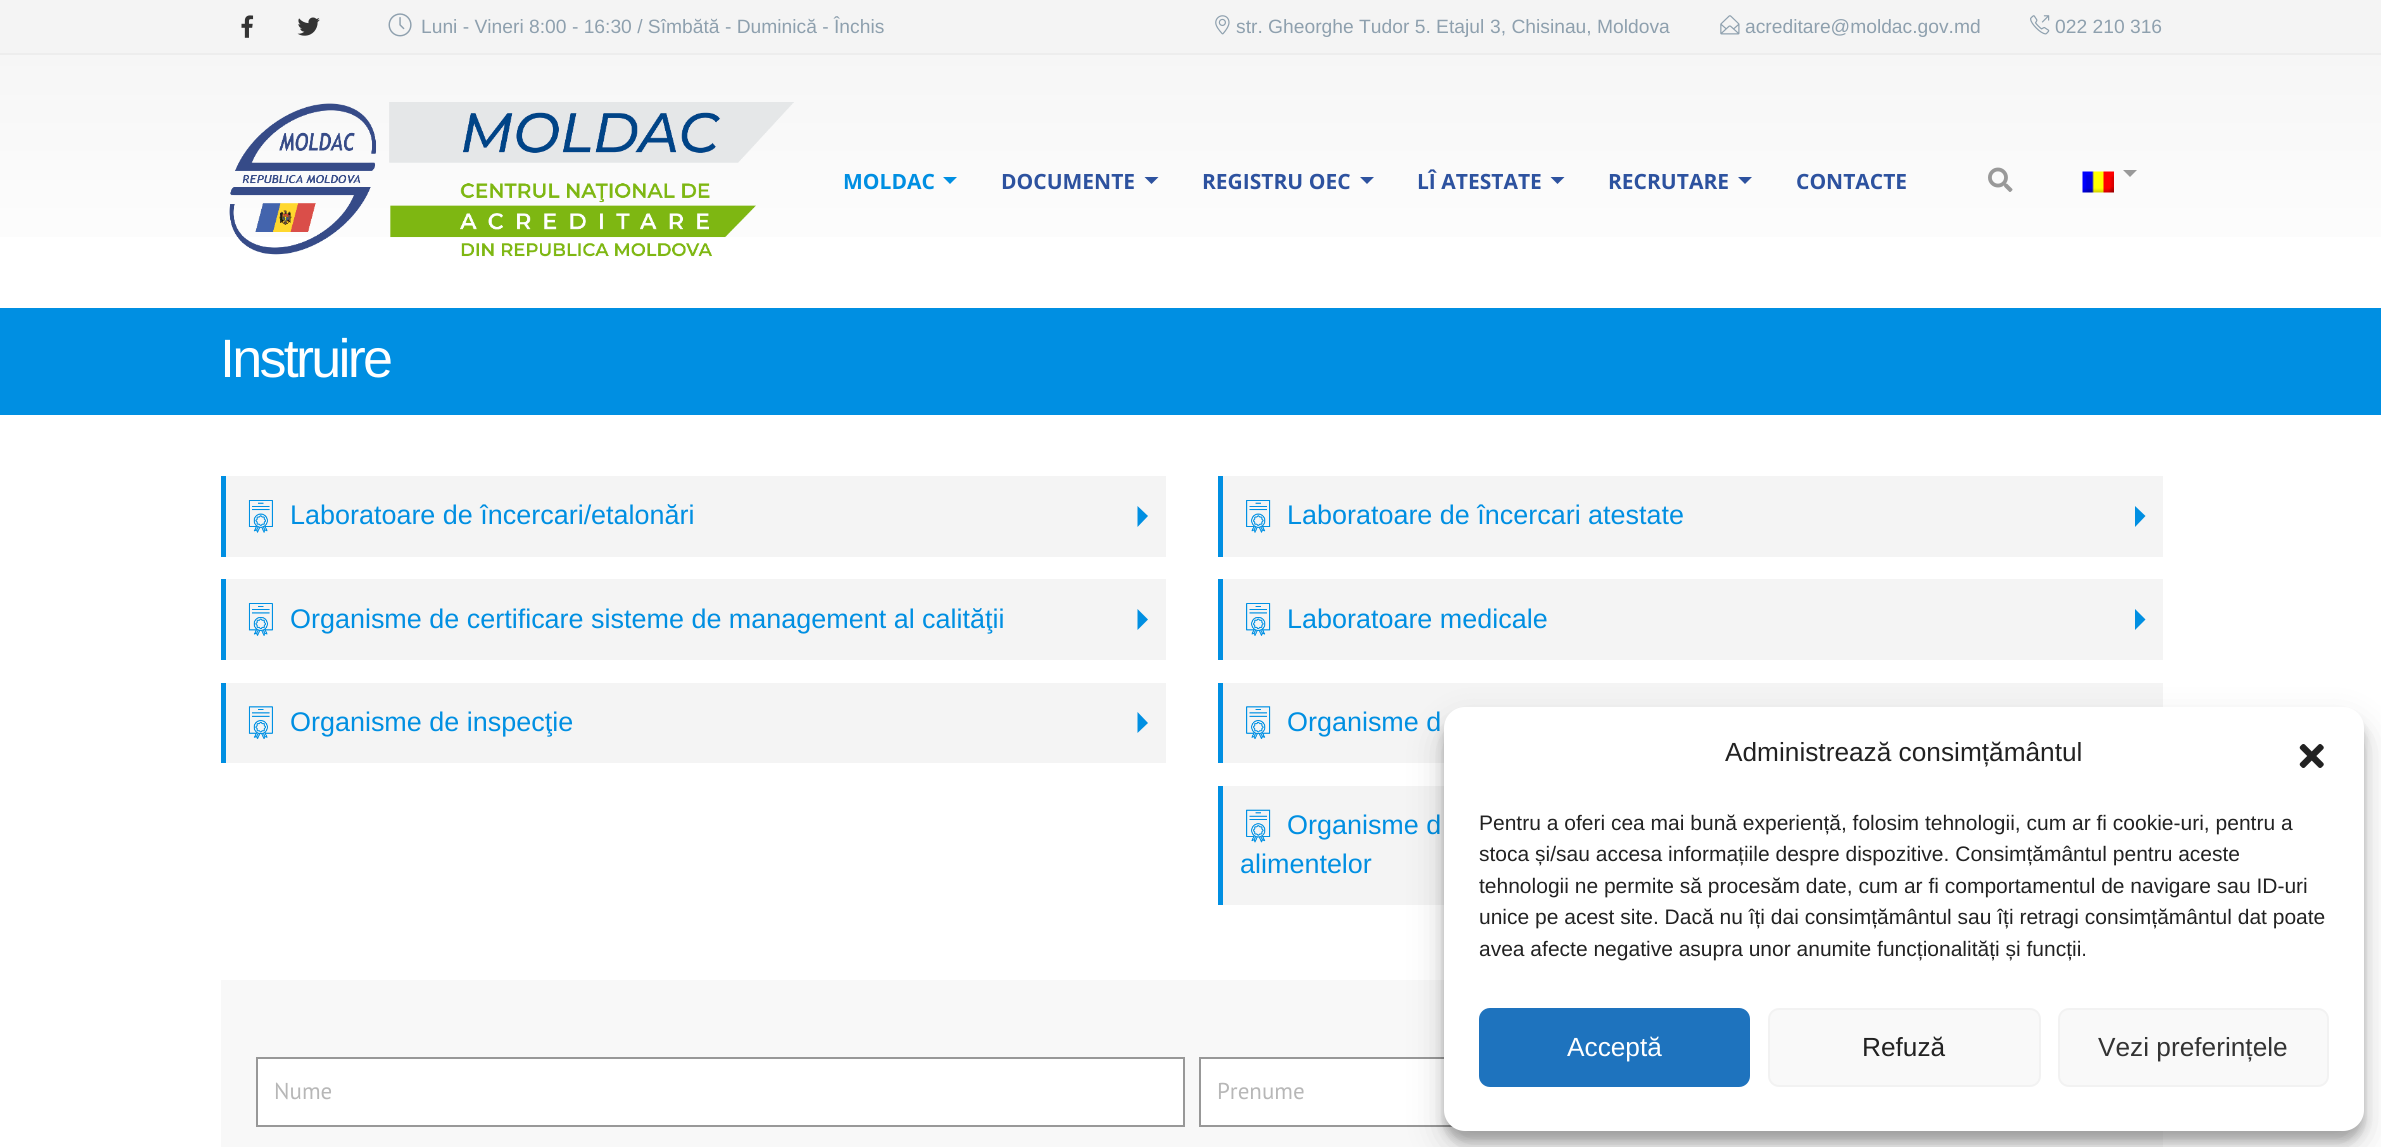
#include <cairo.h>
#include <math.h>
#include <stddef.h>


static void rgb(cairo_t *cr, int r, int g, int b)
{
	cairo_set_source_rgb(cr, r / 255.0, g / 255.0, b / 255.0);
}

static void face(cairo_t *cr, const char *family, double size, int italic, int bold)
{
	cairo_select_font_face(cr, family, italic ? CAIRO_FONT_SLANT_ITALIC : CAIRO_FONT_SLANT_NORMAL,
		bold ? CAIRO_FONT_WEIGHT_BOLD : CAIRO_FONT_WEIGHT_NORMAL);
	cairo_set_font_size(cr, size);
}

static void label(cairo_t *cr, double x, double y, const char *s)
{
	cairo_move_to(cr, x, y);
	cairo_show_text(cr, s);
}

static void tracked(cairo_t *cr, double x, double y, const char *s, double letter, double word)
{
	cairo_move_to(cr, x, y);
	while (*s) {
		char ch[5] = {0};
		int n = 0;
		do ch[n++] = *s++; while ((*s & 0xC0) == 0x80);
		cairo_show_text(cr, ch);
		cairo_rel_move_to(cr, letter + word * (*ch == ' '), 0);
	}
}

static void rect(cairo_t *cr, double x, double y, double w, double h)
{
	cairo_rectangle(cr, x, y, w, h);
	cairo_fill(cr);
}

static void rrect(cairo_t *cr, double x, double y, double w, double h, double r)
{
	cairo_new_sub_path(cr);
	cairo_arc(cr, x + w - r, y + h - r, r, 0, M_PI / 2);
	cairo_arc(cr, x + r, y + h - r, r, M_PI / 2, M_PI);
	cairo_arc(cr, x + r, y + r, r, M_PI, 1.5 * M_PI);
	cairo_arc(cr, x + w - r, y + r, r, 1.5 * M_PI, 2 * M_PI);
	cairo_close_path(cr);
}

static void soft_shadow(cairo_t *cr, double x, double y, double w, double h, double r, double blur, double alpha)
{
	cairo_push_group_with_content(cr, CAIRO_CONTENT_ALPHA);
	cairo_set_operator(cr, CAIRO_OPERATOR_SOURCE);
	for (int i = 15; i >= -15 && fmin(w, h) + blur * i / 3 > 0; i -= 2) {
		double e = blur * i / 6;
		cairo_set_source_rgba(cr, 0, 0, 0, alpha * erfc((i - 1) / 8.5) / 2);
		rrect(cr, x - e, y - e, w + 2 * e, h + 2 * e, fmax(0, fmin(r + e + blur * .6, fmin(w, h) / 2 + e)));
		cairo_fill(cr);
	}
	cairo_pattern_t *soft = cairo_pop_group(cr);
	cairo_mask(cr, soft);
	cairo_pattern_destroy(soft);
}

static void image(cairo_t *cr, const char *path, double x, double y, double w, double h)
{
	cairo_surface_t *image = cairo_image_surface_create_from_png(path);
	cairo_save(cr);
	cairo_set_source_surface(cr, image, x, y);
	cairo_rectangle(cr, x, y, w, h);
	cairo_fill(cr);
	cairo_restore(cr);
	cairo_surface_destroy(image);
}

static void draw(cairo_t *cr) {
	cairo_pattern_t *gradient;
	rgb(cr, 255, 255, 255);
	cairo_paint(cr);
	rgb(cr, 244, 244, 244);
	rect(cr, 0, 0, 2381, 53);
	rgb(cr, 237, 237, 237);
	rect(cr, 0, 53, 2381, 2);
	image(cr, "image0.png", 241, 15, 13, 23);
	image(cr, "image1.png", 297, 17, 23, 19);
	image(cr, "image2.png", 388, 13, 24, 24);
	face(cr, "Liberation Sans", 19.25, 0, 0);
	rgb(cr, 142, 160, 174);
	label(cr, 421, 33, "Luni - Vineri 8:00 - 16:30 / Sîmbătă - Duminică - Închis");
	image(cr, "image3.png", 1215, 15, 15, 20);
	label(cr, 1236, 33, "str. Gheorghe Tudor 5. Etajul");
	label(cr, 1490, 33, "3, Chisinau, Moldova");
	image(cr, "image4.png", 1720, 15, 20, 20);
	label(cr, 1745, 33, "acreditare@moldac.gov.md");
	image(cr, "image5.png", 2030, 15, 20, 20);
	label(cr, 2055, 33, "022 210 316");
	gradient = cairo_pattern_create_linear(1191, 54, 1191, 308);
	cairo_pattern_add_color_stop_rgba(gradient, 0, 0.965, 0.965, 0.965, 1);
	cairo_pattern_add_color_stop_rgba(gradient, 1, 1, 1, 1, 1);
	cairo_set_source(cr, gradient);
	cairo_pattern_destroy(gradient);
	rect(cr, 0, 55, 2381, 182);
	image(cr, "image6.png", 229, 102, 565, 155);
	face(cr, "Open Sans", 21, 0, 1);
	rgb(cr, 0, 143, 226);
	label(cr, 843, 189, "MOLDAC");
	cairo_new_path(cr);
	cairo_move_to(cr, 943, 177);
	cairo_line_to(cr, 957, 177);
	cairo_line_to(cr, 950, 184);
	cairo_close_path(cr);
	cairo_fill(cr);
	rgb(cr, 45, 82, 159);
	label(cr, 1001, 189, "DOCUMENTE");
	cairo_new_path(cr);
	cairo_move_to(cr, 1144.5, 177);
	cairo_line_to(cr, 1158.5, 177);
	cairo_line_to(cr, 1151.5, 184);
	cairo_close_path(cr);
	cairo_fill(cr);
	label(cr, 1202, 189, "REGISTRU OEC");
	cairo_new_path(cr);
	cairo_move_to(cr, 1360, 177);
	cairo_line_to(cr, 1374, 177);
	cairo_line_to(cr, 1367, 184);
	cairo_close_path(cr);
	cairo_fill(cr);
	label(cr, 1417, 189, "LÎ ATESTATE");
	cairo_new_path(cr);
	cairo_move_to(cr, 1550.5, 177);
	cairo_line_to(cr, 1564.5, 177);
	cairo_line_to(cr, 1557.5, 184);
	cairo_close_path(cr);
	cairo_fill(cr);
	label(cr, 1608, 189, "RECRUTARE");
	cairo_new_path(cr);
	cairo_move_to(cr, 1738, 177);
	cairo_line_to(cr, 1752, 177);
	cairo_line_to(cr, 1745, 184);
	cairo_close_path(cr);
	cairo_fill(cr);
	label(cr, 1796, 189, "CONTACTE");
	image(cr, "image7.png", 1988, 167, 25, 25);
	image(cr, "image8.png", 2082, 171, 32, 22);
	rgb(cr, 153, 153, 153);
	cairo_new_path(cr);
	cairo_move_to(cr, 2123, 170);
	cairo_line_to(cr, 2137, 170);
	cairo_line_to(cr, 2130, 177);
	cairo_close_path(cr);
	cairo_fill(cr);
	rgb(cr, 0, 143, 226);
	rect(cr, 0, 308, 2381, 107);
	face(cr, "Liberation Sans", 54, 0, 0);
	rgb(cr, 255, 255, 255);
	tracked(cr, 220, 377, "Instruire", -2.75, 0);
	rgb(cr, 244, 244, 244);
	rect(cr, 226, 476, 940, 81);
	rgb(cr, 0, 143, 226);
	rect(cr, 221, 476, 5, 81);
	image(cr, "image9.png", 248, 500, 25, 33);
	face(cr, "Liberation Sans", 26.95, 0, 0);
	label(cr, 290, 524, "Laboratoare de încercari/etalonări");
	cairo_new_path(cr);
	cairo_move_to(cr, 1137.5, 527);
	cairo_line_to(cr, 1137.5, 506);
	cairo_line_to(cr, 1148, 516);
	cairo_close_path(cr);
	cairo_fill(cr);
	rgb(cr, 244, 244, 244);
	rect(cr, 226, 579, 940, 81);
	rgb(cr, 0, 143, 226);
	rect(cr, 221, 579, 5, 81);
	image(cr, "image10.png", 248, 603, 25, 33);
	label(cr, 290, 628, "Organisme de certificare sisteme de management al calităţii");
	cairo_new_path(cr);
	cairo_move_to(cr, 1137.5, 630);
	cairo_line_to(cr, 1137.5, 609);
	cairo_line_to(cr, 1148, 619.5);
	cairo_close_path(cr);
	cairo_fill(cr);
	rgb(cr, 244, 244, 244);
	rect(cr, 226, 683, 940, 80);
	rgb(cr, 0, 143, 226);
	rect(cr, 221, 683, 5, 80);
	image(cr, "image11.png", 248, 706, 25, 33);
	label(cr, 290, 731, "Organisme de inspecţie");
	cairo_new_path(cr);
	cairo_move_to(cr, 1137.5, 733);
	cairo_line_to(cr, 1137.5, 712);
	cairo_line_to(cr, 1148, 723);
	cairo_close_path(cr);
	cairo_fill(cr);
	rgb(cr, 244, 244, 244);
	rect(cr, 1223, 476, 940, 81);
	rgb(cr, 0, 143, 226);
	rect(cr, 1218, 476, 5, 81);
	image(cr, "image12.png", 1246, 500, 25, 33);
	label(cr, 1287, 524, "Laboratoare de încercari atestate");
	cairo_new_path(cr);
	cairo_move_to(cr, 2135, 527);
	cairo_line_to(cr, 2135, 506);
	cairo_line_to(cr, 2145.5, 516);
	cairo_close_path(cr);
	cairo_fill(cr);
	rgb(cr, 244, 244, 244);
	rect(cr, 1223, 579, 940, 81);
	rgb(cr, 0, 143, 226);
	rect(cr, 1218, 579, 5, 81);
	image(cr, "image13.png", 1246, 603, 25, 33);
	label(cr, 1287, 628, "Laboratoare medicale");
	cairo_new_path(cr);
	cairo_move_to(cr, 2135, 630);
	cairo_line_to(cr, 2135, 609);
	cairo_line_to(cr, 2145.5, 619.5);
	cairo_close_path(cr);
	cairo_fill(cr);
	rgb(cr, 244, 244, 244);
	rect(cr, 1223, 683, 940, 80);
	rgb(cr, 0, 143, 226);
	rect(cr, 1218, 683, 5, 80);
	image(cr, "image14.png", 1246, 706, 25, 33);
	label(cr, 1287, 731, "Organisme d");
	rgb(cr, 244, 244, 244);
	rect(cr, 1223, 786, 221, 119);
	rgb(cr, 0, 143, 226);
	rect(cr, 1218, 786, 5, 119);
	image(cr, "image15.png", 1246, 809, 25, 34);
	label(cr, 1287, 834, "Organisme d");
	label(cr, 1240, 873, "alimentelor");
	rgb(cr, 248, 248, 248);
	rect(cr, 221, 980, 1942, 167);
	rgb(cr, 255, 255, 255);
	cairo_rectangle(cr, 257, 1058, 927, 68);
	cairo_fill_preserve(cr);
	rgb(cr, 152, 152, 152);
	cairo_stroke(cr);
	face(cr, "PT Sans", 23, 0, 0);
	rgb(cr, 183, 183, 183);
	label(cr, 274, 1099, "Nume");
	rgb(cr, 255, 255, 255);
	rect(cr, 1201, 1059, 250, 66);
	cairo_rectangle(cr, 1200, 1058, 927, 68);
	rgb(cr, 152, 152, 152);
	cairo_stroke(cr);
	rgb(cr, 183, 183, 183);
	label(cr, 1217, 1099, "Prenume");
	rgb(cr, 0, 0, 0);
	soft_shadow(cr, 1444, 718, 920, 423, 21, 5, 0.23);
	soft_shadow(cr, 1444, 725, 920, 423, 21, 17.5, 0.19);
	rgb(cr, 255, 255, 255);
	rrect(cr, 1444, 707, 920, 424, 21);
	cairo_fill(cr);
	face(cr, "Liberation Sans", 26.25, 0, 0);
	rgb(cr, 34, 34, 34);
	label(cr, 1725, 761, "Administrează consimțământul");
	image(cr, "image16.png", 2299, 744, 25, 24);
	face(cr, "Liberation Sans", 21, 0, 0);
	label(cr, 1479, 830, "Pentru a oferi cea mai bună experiență, folosim tehnologii, cum ar fi cookie-uri, pentru a");
	label(cr, 1479, 861, "stoca și/sau accesa informațiile despre dispozitive. Consimțământul pentru aceste");
	label(cr, 1479, 893, "tehnologii ne permite să procesăm date, cum ar fi comportamentul de navigare sau ID-uri");
	label(cr, 1479, 924, "unice pe acest site. Dacă nu îți dai consimțământul sau îți retragi consimțământul dat poate");
	label(cr, 1479, 956, "avea afecte negative asupra unor anumite funcționalități și funcții.");
	rgb(cr, 30, 115, 190);
	rrect(cr, 1480, 1009, 269, 77, 10);
	cairo_fill_preserve(cr);
	cairo_stroke(cr);
	face(cr, "Liberation Sans", 26.25, 0, 0);
	rgb(cr, 255, 255, 255);
	label(cr, 1567, 1056, "Acceptă");
	rgb(cr, 249, 249, 249);
	rrect(cr, 1769, 1009, 271, 77, 10);
	cairo_fill_preserve(cr);
	rgb(cr, 242, 242, 242);
	cairo_stroke(cr);
	rgb(cr, 34, 34, 34);
	label(cr, 1862, 1056, "Refuză");
	rgb(cr, 249, 249, 249);
	rrect(cr, 2059, 1009, 269, 77, 10);
	cairo_fill_preserve(cr);
	rgb(cr, 242, 242, 242);
	cairo_stroke(cr);
	rgb(cr, 51, 51, 51);
	label(cr, 2098, 1056, "Vezi preferințele");
}

int main(void) {
	cairo_surface_t *surface = cairo_image_surface_create(CAIRO_FORMAT_RGB24, 2381, 1147);
	cairo_t *cr = cairo_create(surface);
	cairo_font_options_t *options = cairo_font_options_create();
	cairo_font_options_set_hint_metrics(options, CAIRO_HINT_METRICS_OFF);
	cairo_font_options_set_hint_style(options, CAIRO_HINT_STYLE_NONE);
	cairo_set_font_options(cr, options);
	cairo_set_miter_limit(cr, 4);
	draw(cr);
	cairo_surface_write_to_png(surface, "render.png");
	cairo_font_options_destroy(options);
	cairo_destroy(cr);
	cairo_surface_destroy(surface);
	return 0;
}
